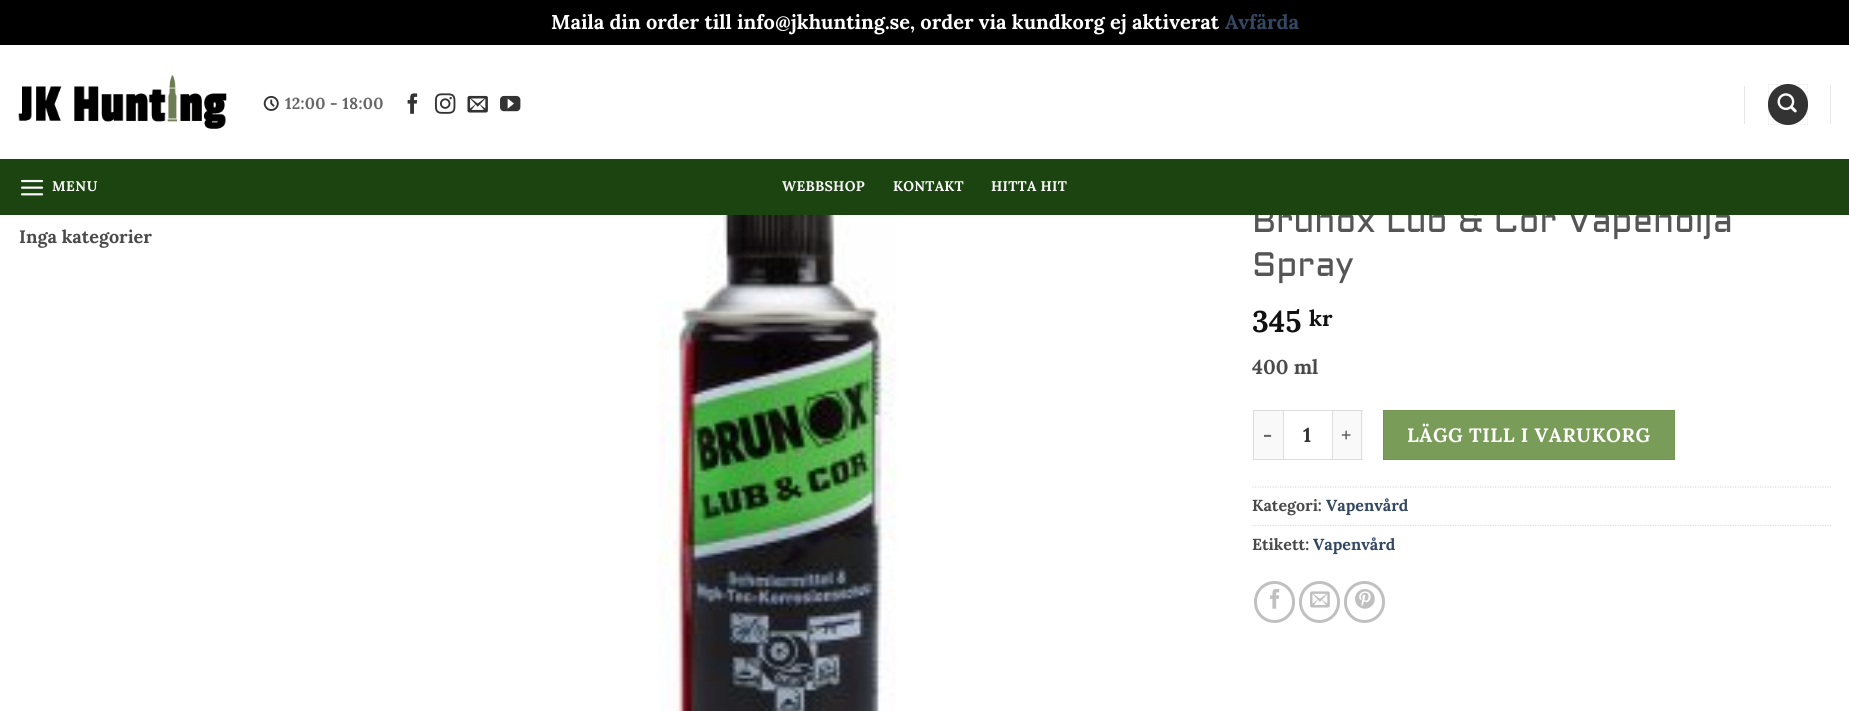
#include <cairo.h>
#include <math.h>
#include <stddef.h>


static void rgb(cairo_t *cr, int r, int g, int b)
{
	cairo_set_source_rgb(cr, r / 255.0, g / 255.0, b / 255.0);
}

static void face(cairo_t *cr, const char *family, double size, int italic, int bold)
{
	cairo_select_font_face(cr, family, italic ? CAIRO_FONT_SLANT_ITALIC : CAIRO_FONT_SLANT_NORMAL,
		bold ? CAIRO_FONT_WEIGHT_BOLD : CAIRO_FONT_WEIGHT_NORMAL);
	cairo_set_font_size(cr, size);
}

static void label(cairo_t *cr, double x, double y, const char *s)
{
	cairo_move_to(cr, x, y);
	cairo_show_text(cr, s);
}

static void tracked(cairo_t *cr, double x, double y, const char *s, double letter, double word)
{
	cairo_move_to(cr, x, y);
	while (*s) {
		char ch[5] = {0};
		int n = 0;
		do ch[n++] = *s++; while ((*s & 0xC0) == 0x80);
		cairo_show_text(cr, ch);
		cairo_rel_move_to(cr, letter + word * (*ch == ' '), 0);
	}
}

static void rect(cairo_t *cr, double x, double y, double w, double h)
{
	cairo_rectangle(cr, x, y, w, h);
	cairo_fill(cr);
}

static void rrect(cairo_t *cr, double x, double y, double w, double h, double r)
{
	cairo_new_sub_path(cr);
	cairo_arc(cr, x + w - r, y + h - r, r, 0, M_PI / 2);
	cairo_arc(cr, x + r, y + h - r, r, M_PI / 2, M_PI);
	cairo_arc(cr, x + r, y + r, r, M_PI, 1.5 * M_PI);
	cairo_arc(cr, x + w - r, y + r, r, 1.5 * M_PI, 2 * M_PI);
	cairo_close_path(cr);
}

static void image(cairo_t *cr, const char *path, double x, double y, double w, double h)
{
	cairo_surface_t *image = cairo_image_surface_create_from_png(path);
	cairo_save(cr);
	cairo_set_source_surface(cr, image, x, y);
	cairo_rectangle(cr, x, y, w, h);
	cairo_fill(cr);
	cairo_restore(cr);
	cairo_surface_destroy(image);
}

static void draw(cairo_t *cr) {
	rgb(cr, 0, 0, 0);
	cairo_paint(cr);
	face(cr, "Lora", 20, 0, 1);
	rgb(cr, 255, 255, 255);
	label(cr, 551, 29, "Maila din order till info@jkhunting.se, order via kundkorg ej aktiverat");
	rgb(cr, 51, 72, 98);
	label(cr, 1225, 29, "Avfärda");
	rgb(cr, 255, 255, 255);
	rect(cr, 0, 45, 1849, 666);
	image(cr, "image0.png", 18, 75, 209, 54);
	image(cr, "image1.png", 263, 95, 16, 16);
	face(cr, "Lora", 16, 0, 1);
	rgb(cr, 102, 102, 102);
	tracked(cr, 285, 109, "12:00 - 18:00", 0.25, 0);
	image(cr, "image2.png", 407, 93, 11, 21);
	image(cr, "image3.png", 435, 93, 21, 21);
	image(cr, "image4.png", 467, 95, 21, 18);
	image(cr, "image5.png", 500, 95, 21, 17);
	rgb(cr, 230, 230, 230);
	rect(cr, 1744, 86, 1, 38);
	rgb(cr, 51, 51, 51);
	rrect(cr, 1768, 84, 40, 41, 20);
	cairo_fill(cr);
	cairo_rectangle(cr, 1768.5, 84.5, 39, 40);
	cairo_set_source_rgba(cr, 0, 0, 0, 0.05);
	cairo_set_line_width(cr, 1);
	cairo_stroke(cr);
	image(cr, "image6.png", 1777, 93, 20, 20);
	rgb(cr, 230, 230, 230);
	rect(cr, 1830, 86, 1, 38);
	face(cr, "Aldrich", 34, 0, 0);
	rgb(cr, 85, 85, 85);
	label(cr, 1252, 232, "Brunox Lub & Cor Vapenolja");
	rgb(cr, 28, 68, 17);
	rect(cr, 0, 159, 1849, 56);
	rgb(cr, 33, 69, 23);
	rect(cr, 19, 159, 1812, 1);
	image(cr, "image7.png", 21, 179, 23, 17);
	face(cr, "Lora", 14, 0, 1);
	rgb(cr, 246, 247, 246);
	tracked(cr, 52, 191, "MENU", 0.5, 0);
	tracked(cr, 782, 191, "WEBBSHOP", 0.25, 0);
	tracked(cr, 893, 191, "KONTAKT", 0.25, 0);
	tracked(cr, 991, 191, "HITTA HIT", 0.25, 0);
	face(cr, "Lora", 18, 0, 1);
	rgb(cr, 74, 74, 74);
	label(cr, 19, 243, "Inga kategorier");
	image(cr, "image8.png", 658, 215, 239, 496);
	face(cr, "Aldrich", 34, 0, 0);
	rgb(cr, 85, 85, 85);
	label(cr, 1252, 276, "Spray");
	face(cr, "Lora", 30, 0, 1);
	rgb(cr, 17, 17, 17);
	label(cr, 1252, 332, "345");
	face(cr, "Lora", 22, 0, 1);
	label(cr, 1309, 326, "kr");
	face(cr, "Lora", 20, 0, 1);
	rgb(cr, 74, 74, 74);
	label(cr, 1252, 374, "400 ml");
	rgb(cr, 249, 249, 249);
	rect(cr, 1254, 411, 29, 48);
	rgb(cr, 221, 221, 221);
	rect(cr, 1253, 410, 30, 1);
	rect(cr, 1253, 459, 30, 1);
	rect(cr, 1253, 410, 1, 50);
	face(cr, "Lora", 19.4, 0, 1);
	rgb(cr, 102, 102, 102);
	tracked(cr, 1263, 442, "-", 0.6, 0);
	cairo_rectangle(cr, 1283.5, 410.5, 49, 49);
	rgb(cr, 221, 221, 221);
	cairo_stroke(cr);
	face(cr, "Lora", 20, 0, 1);
	rgb(cr, 51, 51, 51);
	label(cr, 1303, 442, "1");
	rgb(cr, 249, 249, 249);
	rect(cr, 1333, 411, 30, 48);
	rgb(cr, 221, 221, 221);
	rect(cr, 1333, 410, 30, 1);
	rect(cr, 1361, 410, 1, 50);
	rect(cr, 1333, 459, 30, 1);
	face(cr, "Lora", 19.4, 0, 1);
	rgb(cr, 102, 102, 102);
	tracked(cr, 1341, 442, "+", 0.6, 0);
	rgb(cr, 122, 156, 89);
	cairo_rectangle(cr, 1383.5, 410.5, 291, 49);
	cairo_fill_preserve(cr);
	rgb(cr, 116, 148, 85);
	cairo_stroke(cr);
	rgb(cr, 255, 255, 255);
	tracked(cr, 1407, 442, "LÄGG TILL I VARUKORG", 0.6, 0);
	cairo_new_path(cr);
	cairo_move_to(cr, 1252.5, 487);
	cairo_line_to(cr, 1831, 487);
	rgb(cr, 221, 221, 221);
	cairo_set_line_width(cr, 1.2);
	cairo_set_dash(cr, (double[]){1.25, 1.25}, 2, 0);
	cairo_stroke(cr);
	face(cr, "Lora", 16, 0, 1);
	rgb(cr, 74, 74, 74);
	label(cr, 1252, 511, "Kategori:");
	rgb(cr, 51, 72, 98);
	label(cr, 1326, 511, "Vapenvård");
	cairo_new_path(cr);
	cairo_move_to(cr, 1252.5, 525.5);
	cairo_line_to(cr, 1831, 525.5);
	rgb(cr, 221, 221, 221);
	cairo_stroke(cr);
	rgb(cr, 74, 74, 74);
	label(cr, 1252, 550, "Etikett:");
	rgb(cr, 51, 72, 98);
	label(cr, 1313, 550, "Vapenvård");
	rrect(cr, 1255.5, 582.5, 38, 39, 19);
	rgb(cr, 192, 192, 192);
	cairo_set_line_width(cr, 3);
	cairo_set_dash(cr, NULL, 0, 0);
	cairo_stroke(cr);
	image(cr, "image9.png", 1270, 588, 10, 21);
	rrect(cr, 1300.5, 582.5, 38, 39, 19);
	cairo_stroke(cr);
	image(cr, "image10.png", 1310, 591, 20, 17);
	rrect(cr, 1345.5, 582.5, 38, 39, 19);
	cairo_stroke(cr);
	image(cr, "image11.png", 1355, 589, 20, 20);
}

int main(void) {
	cairo_surface_t *surface = cairo_image_surface_create(CAIRO_FORMAT_RGB24, 1849, 711);
	cairo_t *cr = cairo_create(surface);
	cairo_font_options_t *options = cairo_font_options_create();
	cairo_font_options_set_hint_metrics(options, CAIRO_HINT_METRICS_OFF);
	cairo_font_options_set_hint_style(options, CAIRO_HINT_STYLE_NONE);
	cairo_set_font_options(cr, options);
	cairo_set_miter_limit(cr, 4);
	draw(cr);
	cairo_surface_write_to_png(surface, "render.png");
	cairo_font_options_destroy(options);
	cairo_destroy(cr);
	cairo_surface_destroy(surface);
	return 0;
}
